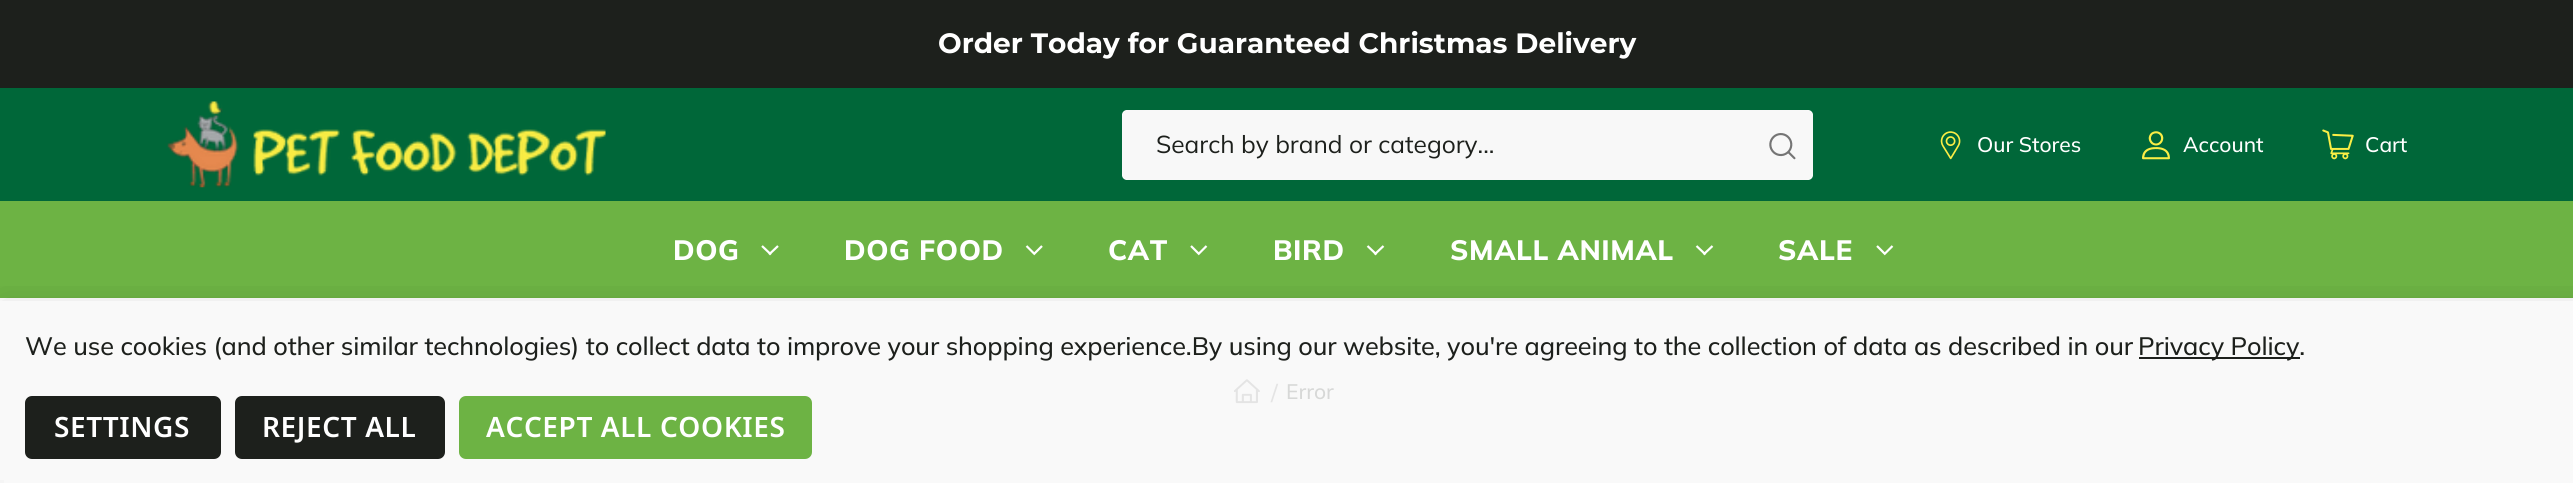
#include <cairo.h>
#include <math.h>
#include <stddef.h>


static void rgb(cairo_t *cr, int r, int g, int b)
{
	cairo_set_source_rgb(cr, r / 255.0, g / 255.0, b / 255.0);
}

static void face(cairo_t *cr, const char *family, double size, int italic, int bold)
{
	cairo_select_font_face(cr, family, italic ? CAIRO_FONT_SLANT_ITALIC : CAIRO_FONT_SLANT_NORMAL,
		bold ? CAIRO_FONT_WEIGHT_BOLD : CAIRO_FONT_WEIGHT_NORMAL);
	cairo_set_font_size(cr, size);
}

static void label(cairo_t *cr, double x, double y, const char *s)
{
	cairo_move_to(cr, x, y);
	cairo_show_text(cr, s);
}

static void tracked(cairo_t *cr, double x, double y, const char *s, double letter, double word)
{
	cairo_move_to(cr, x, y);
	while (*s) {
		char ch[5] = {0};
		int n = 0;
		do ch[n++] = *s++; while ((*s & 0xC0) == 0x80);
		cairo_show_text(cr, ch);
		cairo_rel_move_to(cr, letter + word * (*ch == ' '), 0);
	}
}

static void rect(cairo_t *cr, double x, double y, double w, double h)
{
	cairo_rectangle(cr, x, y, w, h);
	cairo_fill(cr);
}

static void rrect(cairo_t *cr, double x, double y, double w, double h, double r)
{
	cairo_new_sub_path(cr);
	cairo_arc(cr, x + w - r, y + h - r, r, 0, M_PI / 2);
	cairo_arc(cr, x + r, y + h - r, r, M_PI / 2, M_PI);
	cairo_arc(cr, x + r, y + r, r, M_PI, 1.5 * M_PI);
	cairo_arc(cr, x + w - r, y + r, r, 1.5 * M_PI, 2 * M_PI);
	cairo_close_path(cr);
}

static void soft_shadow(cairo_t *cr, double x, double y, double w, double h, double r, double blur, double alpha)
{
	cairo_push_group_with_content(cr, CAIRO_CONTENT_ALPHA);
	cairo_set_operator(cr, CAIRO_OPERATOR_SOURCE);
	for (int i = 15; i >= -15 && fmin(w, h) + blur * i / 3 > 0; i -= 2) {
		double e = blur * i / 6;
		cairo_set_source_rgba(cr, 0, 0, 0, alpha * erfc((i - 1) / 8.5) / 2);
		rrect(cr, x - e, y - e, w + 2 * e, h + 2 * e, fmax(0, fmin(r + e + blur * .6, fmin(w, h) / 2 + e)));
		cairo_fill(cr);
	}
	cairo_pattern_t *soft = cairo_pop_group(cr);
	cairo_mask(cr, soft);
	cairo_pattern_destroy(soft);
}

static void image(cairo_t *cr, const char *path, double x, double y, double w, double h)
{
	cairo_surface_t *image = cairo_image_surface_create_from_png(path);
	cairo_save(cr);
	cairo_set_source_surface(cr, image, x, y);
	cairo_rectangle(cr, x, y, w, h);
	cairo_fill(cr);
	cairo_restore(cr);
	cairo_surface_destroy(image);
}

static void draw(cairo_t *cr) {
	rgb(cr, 255, 255, 255);
	cairo_paint(cr);
	rgb(cr, 249, 249, 249);
	rect(cr, 0, 301, 2573, 182);
	rgb(cr, 29, 32, 28);
	rect(cr, 0, 0, 2573, 88);
	face(cr, "Montserrat", 28, 0, 1);
	rgb(cr, 255, 255, 255);
	label(cr, 938, 53, "Order Today for Guaranteed Christmas Delivery");
	rgb(cr, 0, 103, 57);
	rect(cr, 0, 88, 2573, 113);
	image(cr, "image0.png", 167, 101, 439, 87);
	rgb(cr, 255, 255, 255);
	rrect(cr, 1122, 110, 691, 70, 5);
	cairo_fill(cr);
	rgb(cr, 248, 248, 248);
	rrect(cr, 1122, 110, 691, 70, 7);
	cairo_fill(cr);
	face(cr, "Mulish", 24.5, 0, 0);
	rgb(cr, 29, 32, 28);
	label(cr, 1156, 153, "Search by brand or category...");
	image(cr, "image1.png", 1769, 133, 27, 27);
	image(cr, "image2.png", 1940, 131, 21, 29);
	face(cr, "Mulish Medium", 21, 0, 0);
	rgb(cr, 255, 255, 255);
	label(cr, 1977, 152, "Our Stores");
	image(cr, "image3.png", 2142, 131, 28, 29);
	label(cr, 2183, 152, "Account");
	image(cr, "image4.png", 2322, 129, 32, 31);
	label(cr, 2365, 152, "Cart");
	rgb(cr, 109, 179, 68);
	rect(cr, 0, 201, 2573, 97);
	face(cr, "Mulish ExtraBold", 28, 0, 0);
	rgb(cr, 255, 255, 255);
	tracked(cr, 673, 260, "DOG", 0.6, 0);
	cairo_new_path(cr);
	cairo_move_to(cr, 762, 246);
	cairo_line_to(cr, 771, 254.5);
	cairo_move_to(cr, 778, 246);
	cairo_line_to(cr, 769, 254.5);
	cairo_set_line_width(cr, 2.2);
	cairo_stroke(cr);
	tracked(cr, 844, 260, "DOG FOOD", 0.6, 0);
	cairo_new_path(cr);
	cairo_move_to(cr, 1026.5, 246);
	cairo_line_to(cr, 1035, 254.5);
	cairo_move_to(cr, 1042, 246);
	cairo_line_to(cr, 1033.5, 254.5);
	cairo_stroke(cr);
	tracked(cr, 1108, 260, "CAT", 0.6, 0);
	cairo_new_path(cr);
	cairo_move_to(cr, 1191, 246);
	cairo_line_to(cr, 1199.5, 254.5);
	cairo_move_to(cr, 1206.5, 246);
	cairo_line_to(cr, 1198, 254.5);
	cairo_stroke(cr);
	tracked(cr, 1273, 260, "BIRD", 0.6, 0);
	cairo_new_path(cr);
	cairo_move_to(cr, 1367.5, 246);
	cairo_line_to(cr, 1376.5, 254.5);
	cairo_move_to(cr, 1383.5, 246);
	cairo_line_to(cr, 1374.5, 254.5);
	cairo_stroke(cr);
	tracked(cr, 1450, 260, "SMALL ANIMAL", 0.6, 0);
	cairo_new_path(cr);
	cairo_move_to(cr, 1696.5, 246);
	cairo_line_to(cr, 1705.5, 254.5);
	cairo_move_to(cr, 1712.5, 246);
	cairo_line_to(cr, 1703.5, 254.5);
	cairo_stroke(cr);
	tracked(cr, 1778, 260, "SALE", 0.6, 0);
	cairo_new_path(cr);
	cairo_move_to(cr, 1877, 246);
	cairo_line_to(cr, 1885.5, 254.5);
	cairo_move_to(cr, 1892.5, 246);
	cairo_line_to(cr, 1884, 254.5);
	cairo_stroke(cr);
	image(cr, "image5.png", 1234, 379, 26, 25);
	cairo_save(cr);
	cairo_rectangle(cr, 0, 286, 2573, 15);
	cairo_clip(cr);
	rgb(cr, 0, 0, 0);
	soft_shadow(cr, 4, 305, 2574, 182, 0, 17.5, 0.15);
	cairo_restore(cr);
	face(cr, "Mulish Medium", 25.2, 0, 0);
	rgb(cr, 29, 32, 28);
	tracked(cr, 25, 355, "We use cookies (and other similar technologies) to collect data to improve your shopping experience.By using our website, you're agreeing to the collection of data as described in our", -0.09, 0);
	rect(cr, 2139, 357, 161, 2);
	tracked(cr, 2138, 355, "Privacy Policy.", -0.09, 0);
	rrect(cr, 26, 397, 194, 61, 6);
	cairo_fill_preserve(cr);
	cairo_set_line_width(cr, 2);
	cairo_stroke(cr);
	face(cr, "Noto Sans SemiBold", 28, 0, 0);
	rgb(cr, 255, 255, 255);
	tracked(cr, 54, 437, "SETTINGS", 0.6, 0);
	rgb(cr, 29, 32, 28);
	rrect(cr, 235, 396, 210, 63, 7);
	cairo_fill(cr);
	rgb(cr, 255, 255, 255);
	tracked(cr, 262, 437, "REJECT ALL", 0.6, 0);
	rgb(cr, 109, 179, 68);
	rrect(cr, 459, 396, 353, 63, 7);
	cairo_fill(cr);
	rgb(cr, 255, 255, 255);
	tracked(cr, 486, 437, "ACCEPT ALL COOKIES", 0.6, 0);
	face(cr, "Mulish Medium", 23, 0, 0);
	rgb(cr, 228, 228, 228);
	label(cr, 1271, 401, "/");
	face(cr, "Mulish Medium", 21, 0, 0);
	rgb(cr, 215, 216, 215);
	label(cr, 1286, 399, "Error");
	rgb(cr, 245, 245, 245);
	rect(cr, 0, 480, 4, 3);
}

int main(void) {
	cairo_surface_t *surface = cairo_image_surface_create(CAIRO_FORMAT_RGB24, 2573, 483);
	cairo_t *cr = cairo_create(surface);
	cairo_font_options_t *options = cairo_font_options_create();
	cairo_font_options_set_hint_metrics(options, CAIRO_HINT_METRICS_OFF);
	cairo_font_options_set_hint_style(options, CAIRO_HINT_STYLE_NONE);
	cairo_set_font_options(cr, options);
	cairo_set_miter_limit(cr, 4);
	draw(cr);
	cairo_surface_write_to_png(surface, "render.png");
	cairo_font_options_destroy(options);
	cairo_destroy(cr);
	cairo_surface_destroy(surface);
	return 0;
}
